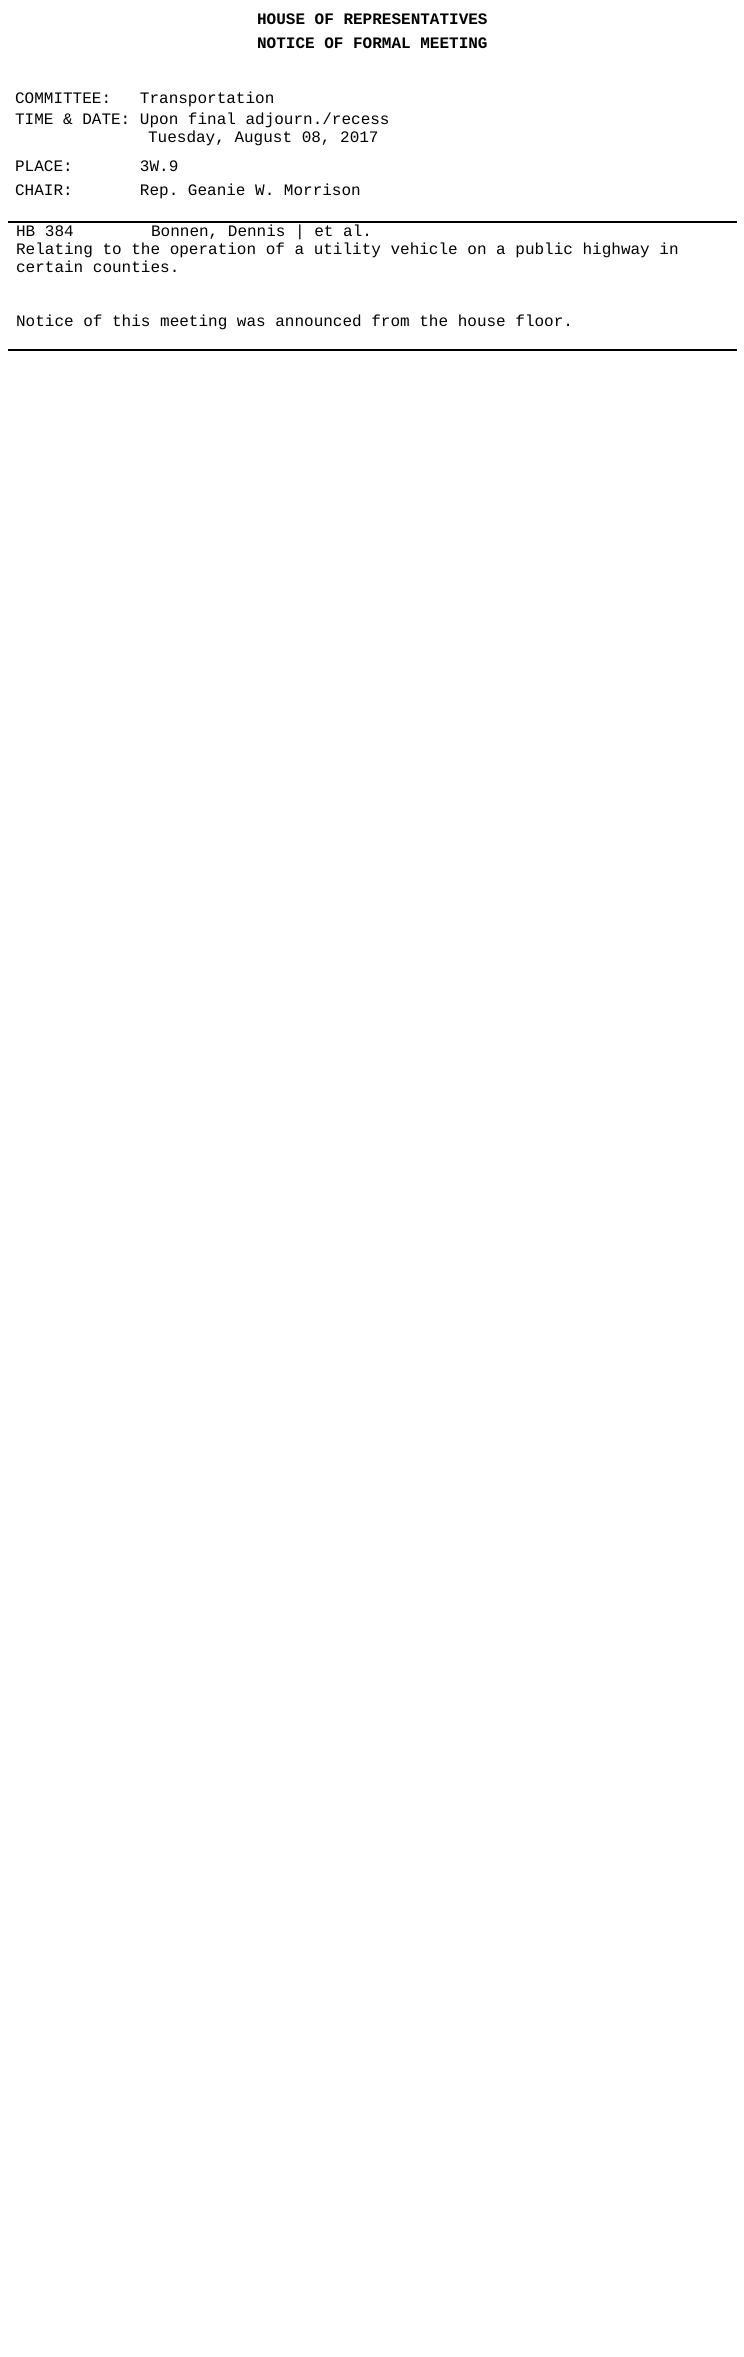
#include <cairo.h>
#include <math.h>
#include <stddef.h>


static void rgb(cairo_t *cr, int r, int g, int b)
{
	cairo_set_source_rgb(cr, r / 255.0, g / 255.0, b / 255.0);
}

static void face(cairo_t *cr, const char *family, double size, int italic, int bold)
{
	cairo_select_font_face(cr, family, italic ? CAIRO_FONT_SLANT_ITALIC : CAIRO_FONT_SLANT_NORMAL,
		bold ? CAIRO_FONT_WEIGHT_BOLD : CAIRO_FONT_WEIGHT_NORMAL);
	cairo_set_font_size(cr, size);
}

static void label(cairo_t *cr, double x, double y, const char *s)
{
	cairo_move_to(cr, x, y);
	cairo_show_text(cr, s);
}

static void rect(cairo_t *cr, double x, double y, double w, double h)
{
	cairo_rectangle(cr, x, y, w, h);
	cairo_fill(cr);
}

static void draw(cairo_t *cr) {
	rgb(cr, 255, 255, 255);
	cairo_paint(cr);
	face(cr, "Liberation Mono", 16, 0, 1);
	rgb(cr, 0, 0, 0);
	label(cr, 257, 24, "HOUSE OF REPRESENTATIVES");
	label(cr, 257, 48, "NOTICE OF FORMAL MEETING");
	face(cr, "Liberation Mono", 16, 0, 0);
	label(cr, 15, 103, "COMMITTEE:   Transportation");
	label(cr, 15, 124, "TIME & DATE: Upon final adjourn./recess");
	label(cr, 148, 142, "Tuesday, August 08, 2017");
	label(cr, 15, 171, "PLACE:       3W.9");
	label(cr, 15, 195, "CHAIR:       Rep. Geanie W. Morrison");
	rect(cr, 8, 221, 729, 2);
	label(cr, 16, 236, "HB 384");
	label(cr, 151, 236, "Bonnen, Dennis | et al.");
	label(cr, 16, 254, "Relating to the operation of a utility vehicle on a public highway in");
	label(cr, 16, 272, "certain counties.");
	rect(cr, 8, 349, 729, 2);
	label(cr, 16, 326, "Notice of this meeting was announced from the house floor.");
}

int main(void) {
	cairo_surface_t *surface = cairo_image_surface_create(CAIRO_FORMAT_RGB24, 744, 2357);
	cairo_t *cr = cairo_create(surface);
	cairo_font_options_t *options = cairo_font_options_create();
	cairo_font_options_set_hint_metrics(options, CAIRO_HINT_METRICS_OFF);
	cairo_font_options_set_hint_style(options, CAIRO_HINT_STYLE_NONE);
	cairo_set_font_options(cr, options);
	cairo_set_miter_limit(cr, 4);
	draw(cr);
	cairo_surface_write_to_png(surface, "render.png");
	cairo_font_options_destroy(options);
	cairo_destroy(cr);
	cairo_surface_destroy(surface);
	return 0;
}
